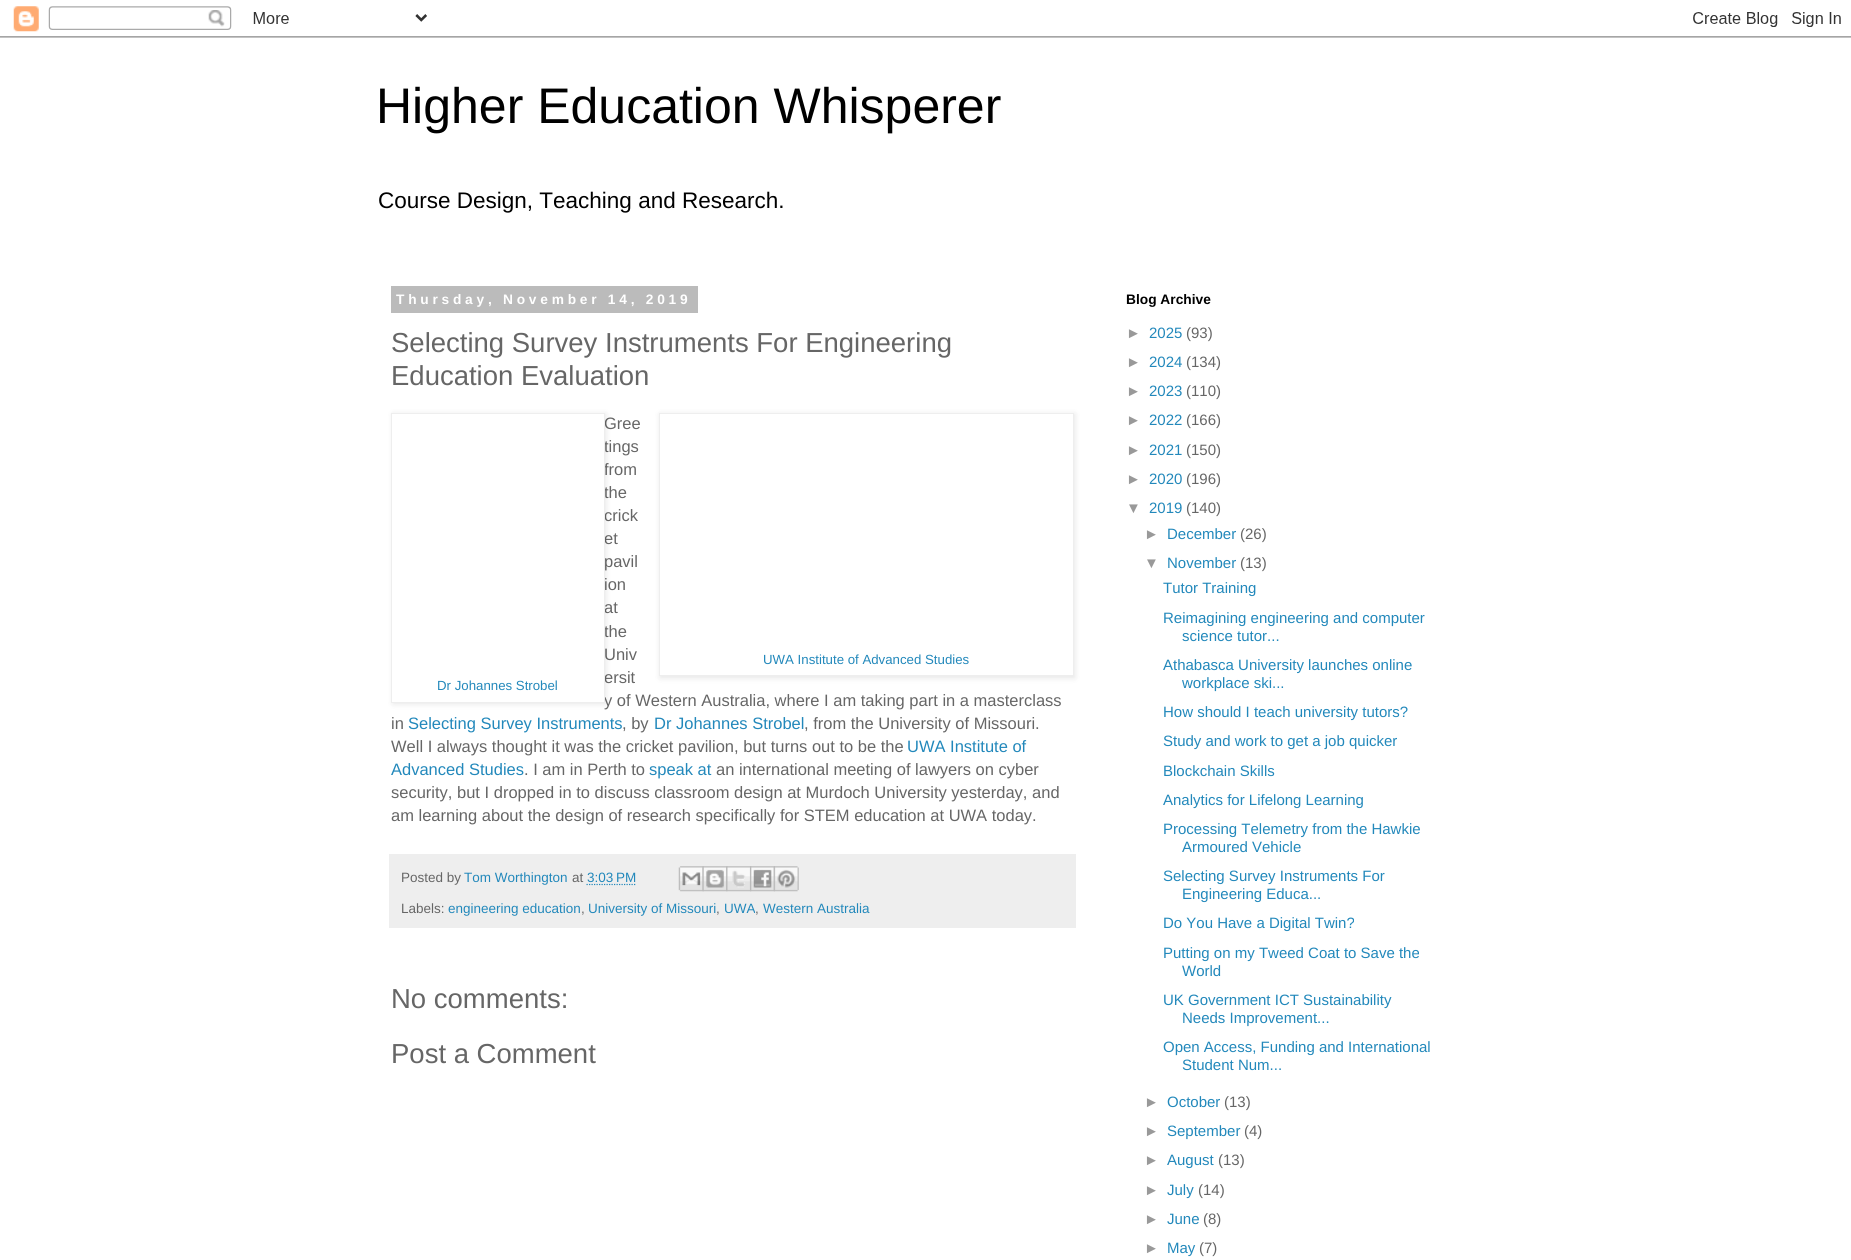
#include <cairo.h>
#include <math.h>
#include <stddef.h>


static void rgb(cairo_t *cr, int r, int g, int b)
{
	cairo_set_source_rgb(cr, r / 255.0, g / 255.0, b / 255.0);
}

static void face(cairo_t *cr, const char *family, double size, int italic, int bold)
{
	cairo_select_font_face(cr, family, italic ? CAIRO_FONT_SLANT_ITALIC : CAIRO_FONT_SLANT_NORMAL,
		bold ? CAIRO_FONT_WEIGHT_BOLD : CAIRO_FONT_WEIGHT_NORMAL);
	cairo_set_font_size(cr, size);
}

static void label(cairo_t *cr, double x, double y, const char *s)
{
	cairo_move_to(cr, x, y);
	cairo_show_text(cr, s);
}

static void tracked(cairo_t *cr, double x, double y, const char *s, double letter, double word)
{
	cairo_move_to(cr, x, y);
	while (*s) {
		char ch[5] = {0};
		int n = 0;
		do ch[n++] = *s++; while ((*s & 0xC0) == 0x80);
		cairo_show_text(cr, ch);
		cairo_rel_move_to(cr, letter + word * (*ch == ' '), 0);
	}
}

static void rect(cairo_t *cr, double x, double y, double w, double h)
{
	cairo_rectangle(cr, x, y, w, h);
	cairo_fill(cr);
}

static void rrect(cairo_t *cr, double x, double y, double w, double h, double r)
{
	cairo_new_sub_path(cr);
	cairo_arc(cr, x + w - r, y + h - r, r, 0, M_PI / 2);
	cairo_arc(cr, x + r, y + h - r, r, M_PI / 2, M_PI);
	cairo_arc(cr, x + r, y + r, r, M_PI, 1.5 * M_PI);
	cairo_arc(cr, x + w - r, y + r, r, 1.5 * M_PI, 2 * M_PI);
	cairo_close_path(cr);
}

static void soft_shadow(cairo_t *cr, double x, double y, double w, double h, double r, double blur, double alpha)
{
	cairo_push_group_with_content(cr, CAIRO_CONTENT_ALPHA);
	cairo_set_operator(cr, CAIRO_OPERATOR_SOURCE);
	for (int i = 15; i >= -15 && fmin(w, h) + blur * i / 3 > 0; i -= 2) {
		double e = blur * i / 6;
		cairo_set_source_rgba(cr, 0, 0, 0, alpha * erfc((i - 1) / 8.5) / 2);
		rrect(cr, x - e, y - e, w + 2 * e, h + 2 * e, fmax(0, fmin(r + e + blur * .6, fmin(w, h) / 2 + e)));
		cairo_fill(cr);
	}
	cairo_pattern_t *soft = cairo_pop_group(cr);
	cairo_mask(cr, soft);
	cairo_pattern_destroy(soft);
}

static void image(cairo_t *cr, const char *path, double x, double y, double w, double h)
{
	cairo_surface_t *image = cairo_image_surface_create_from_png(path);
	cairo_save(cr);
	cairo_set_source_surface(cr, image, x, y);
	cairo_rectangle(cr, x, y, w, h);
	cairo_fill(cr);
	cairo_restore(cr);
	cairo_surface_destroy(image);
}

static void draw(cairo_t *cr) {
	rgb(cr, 255, 255, 255);
	cairo_paint(cr);
	image(cr, "image0.png", 0, 6, 1851, 32);
	face(cr, "Liberation Sans", 50, 0, 0);
	rgb(cr, 0, 0, 0);
	label(cr, 376, 123, "Higher Education Whisperer");
	face(cr, "Liberation Sans", 22.5, 0, 0);
	label(cr, 378, 208, "Course Design, Teaching and Research.");
	rgb(cr, 187, 187, 187);
	rect(cr, 391, 286, 307, 27);
	face(cr, "Liberation Sans", 13.75, 0, 1);
	rgb(cr, 255, 255, 255);
	tracked(cr, 396, 304, "Thursday, November 14, 2019", 3.75, 0);
	face(cr, "Liberation Sans", 27.5, 0, 0);
	rgb(cr, 102, 102, 102);
	label(cr, 391, 352, "Selecting Survey Instruments For Engineering");
	label(cr, 391, 385, "Education Evaluation");
	face(cr, "Liberation Sans", 16.5, 0, 0);
	label(cr, 604, 429, "Gree");
	label(cr, 604, 452, "tings");
	label(cr, 604, 475, "from");
	label(cr, 604, 498, "the");
	label(cr, 604, 521, "crick");
	label(cr, 604, 544, "et");
	label(cr, 604, 567, "pavil");
	label(cr, 604, 590, "ion");
	label(cr, 604, 613, "at");
	label(cr, 604, 637, "the");
	label(cr, 604, 660, "Univ");
	rgb(cr, 0, 0, 0);
	soft_shadow(cr, 660, 414, 415, 264, 0, 3, 0.1);
	rgb(cr, 255, 255, 255);
	cairo_rectangle(cr, 659.5, 413.5, 414, 262);
	cairo_fill_preserve(cr);
	rgb(cr, 238, 238, 238);
	cairo_set_line_width(cr, 1);
	cairo_stroke(cr);
	face(cr, "Liberation Sans", 13.25, 0, 0);
	rgb(cr, 34, 136, 187);
	label(cr, 763, 664, "UWA Institute of Advanced Studies");
	face(cr, "Liberation Sans", 16.5, 0, 0);
	rgb(cr, 102, 102, 102);
	label(cr, 604, 683, "ersit");
	rgb(cr, 0, 0, 0);
	soft_shadow(cr, 393, 414, 213, 290, 0, 3, 0.1);
	rgb(cr, 102, 102, 102);
	label(cr, 604, 706, "y of Western Australia, where I am taking part in a masterclass");
	rgb(cr, 255, 255, 255);
	cairo_rectangle(cr, 391.5, 413.5, 213, 289);
	cairo_fill_preserve(cr);
	rgb(cr, 238, 238, 238);
	cairo_stroke(cr);
	face(cr, "Liberation Sans", 13.25, 0, 0);
	rgb(cr, 34, 136, 187);
	label(cr, 437, 690, "Dr Johannes Strobel");
	face(cr, "Liberation Sans", 16.5, 0, 0);
	rgb(cr, 102, 102, 102);
	label(cr, 391, 729, "in");
	rgb(cr, 34, 136, 187);
	label(cr, 408, 729, "Selecting Survey Instruments");
	rgb(cr, 102, 102, 102);
	label(cr, 622, 729, ", by");
	rgb(cr, 34, 136, 187);
	label(cr, 654, 729, "Dr Johannes Strobel");
	rgb(cr, 102, 102, 102);
	label(cr, 804, 729, ", from the University of Missouri.");
	label(cr, 391, 752, "Well I always thought it was the cricket pavilion, but turns out to be the");
	rgb(cr, 34, 136, 187);
	label(cr, 907, 752, "UWA Institute of");
	label(cr, 391, 775, "Advanced Studies");
	rgb(cr, 102, 102, 102);
	label(cr, 524, 775, ". I am in Perth to");
	rgb(cr, 34, 136, 187);
	label(cr, 649, 775, "speak at");
	rgb(cr, 102, 102, 102);
	label(cr, 716, 775, "an international meeting of lawyers on cyber");
	label(cr, 391, 798, "security, but I dropped in to discuss classroom design at Murdoch University yesterday, and");
	label(cr, 391, 821, "am learning about the design of research specifically for STEM education at UWA today.");
	rgb(cr, 238, 238, 238);
	rect(cr, 389, 854, 687, 74);
	face(cr, "Liberation Sans", 13.5, 0, 0);
	rgb(cr, 102, 102, 102);
	label(cr, 401, 882, "Posted by");
	rgb(cr, 34, 136, 187);
	label(cr, 464, 882, "Tom Worthington");
	rgb(cr, 102, 102, 102);
	label(cr, 572, 882, "at");
	rgb(cr, 34, 136, 187);
	label(cr, 587, 882, "3:03 PM");
	cairo_new_path(cr);
	cairo_move_to(cr, 586.5, 884.5);
	cairo_line_to(cr, 636, 884.5);
	cairo_set_line_width(cr, 1.2);
	cairo_set_dash(cr, (double[]){1.25, 1.25}, 2, 0);
	cairo_stroke(cr);
	image(cr, "image1.png", 678, 866, 26, 26);
	image(cr, "image2.png", 702, 866, 26, 26);
	image(cr, "image3.png", 726, 866, 26, 26);
	image(cr, "image4.png", 750, 866, 25, 26);
	image(cr, "image5.png", 773, 866, 26, 26);
	rgb(cr, 102, 102, 102);
	label(cr, 401, 913, "Labels:");
	rgb(cr, 34, 136, 187);
	label(cr, 448, 913, "engineering education");
	rgb(cr, 102, 102, 102);
	label(cr, 581, 913, ",");
	rgb(cr, 34, 136, 187);
	label(cr, 588, 913, "University of Missouri");
	rgb(cr, 102, 102, 102);
	label(cr, 716, 913, ",");
	rgb(cr, 34, 136, 187);
	label(cr, 724, 913, "UWA");
	rgb(cr, 102, 102, 102);
	label(cr, 755, 913, ",");
	rgb(cr, 34, 136, 187);
	label(cr, 763, 913, "Western Australia");
	face(cr, "Liberation Sans", 27.5, 0, 0);
	rgb(cr, 102, 102, 102);
	label(cr, 391, 1008, "No comments:");
	label(cr, 391, 1063, "Post a Comment");
	face(cr, "Liberation Sans", 13.75, 0, 1);
	rgb(cr, 0, 0, 0);
	label(cr, 1126, 304, "Blog Archive");
	face(cr, "Liberation Sans", 15, 0, 0);
	rgb(cr, 153, 153, 153);
	label(cr, 1126, 338, "►");
	rgb(cr, 34, 136, 187);
	label(cr, 1149, 338, "2025");
	rgb(cr, 102, 102, 102);
	label(cr, 1186, 338, "(93)");
	rgb(cr, 153, 153, 153);
	label(cr, 1126, 367, "►");
	rgb(cr, 34, 136, 187);
	label(cr, 1149, 367, "2024");
	rgb(cr, 102, 102, 102);
	label(cr, 1186, 367, "(134)");
	rgb(cr, 153, 153, 153);
	label(cr, 1126, 396, "►");
	rgb(cr, 34, 136, 187);
	label(cr, 1149, 396, "2023");
	rgb(cr, 102, 102, 102);
	label(cr, 1186, 396, "(110)");
	rgb(cr, 153, 153, 153);
	label(cr, 1126, 425, "►");
	rgb(cr, 34, 136, 187);
	label(cr, 1149, 425, "2022");
	rgb(cr, 102, 102, 102);
	label(cr, 1186, 425, "(166)");
	rgb(cr, 153, 153, 153);
	label(cr, 1126, 455, "►");
	rgb(cr, 34, 136, 187);
	label(cr, 1149, 455, "2021");
	rgb(cr, 102, 102, 102);
	label(cr, 1186, 455, "(150)");
	rgb(cr, 153, 153, 153);
	label(cr, 1126, 484, "►");
	rgb(cr, 34, 136, 187);
	label(cr, 1149, 484, "2020");
	rgb(cr, 102, 102, 102);
	label(cr, 1186, 484, "(196)");
	rgb(cr, 153, 153, 153);
	label(cr, 1126, 513, "▼");
	rgb(cr, 34, 136, 187);
	label(cr, 1149, 513, "2019");
	rgb(cr, 102, 102, 102);
	label(cr, 1186, 513, "(140)");
	rgb(cr, 153, 153, 153);
	label(cr, 1144, 539, "►");
	rgb(cr, 34, 136, 187);
	label(cr, 1167, 539, "December");
	rgb(cr, 102, 102, 102);
	label(cr, 1240, 539, "(26)");
	rgb(cr, 153, 153, 153);
	label(cr, 1144, 568, "▼");
	rgb(cr, 34, 136, 187);
	label(cr, 1167, 568, "November");
	rgb(cr, 102, 102, 102);
	label(cr, 1240, 568, "(13)");
	rgb(cr, 34, 136, 187);
	label(cr, 1163, 593, "Tutor Training");
	label(cr, 1163, 623, "Reimagining engineering and computer");
	label(cr, 1182, 641, "science tutor...");
	label(cr, 1163, 670, "Athabasca University launches online");
	label(cr, 1182, 688, "workplace ski...");
	label(cr, 1163, 717, "How should I teach university tutors?");
	label(cr, 1163, 746, "Study and work to get a job quicker");
	label(cr, 1163, 776, "Blockchain Skills");
	label(cr, 1163, 805, "Analytics for Lifelong Learning");
	label(cr, 1163, 834, "Processing Telemetry from the Hawkie");
	label(cr, 1182, 852, "Armoured Vehicle");
	label(cr, 1163, 881, "Selecting Survey Instruments For");
	label(cr, 1182, 899, "Engineering Educa...");
	label(cr, 1163, 928, "Do You Have a Digital Twin?");
	label(cr, 1163, 958, "Putting on my Tweed Coat to Save the");
	label(cr, 1182, 976, "World");
	label(cr, 1163, 1005, "UK Government ICT Sustainability");
	label(cr, 1182, 1023, "Needs Improvement...");
	label(cr, 1163, 1052, "Open Access, Funding and International");
	label(cr, 1182, 1070, "Student Num...");
	rgb(cr, 153, 153, 153);
	label(cr, 1144, 1107, "►");
	rgb(cr, 34, 136, 187);
	label(cr, 1167, 1107, "October");
	rgb(cr, 102, 102, 102);
	label(cr, 1224, 1107, "(13)");
	rgb(cr, 153, 153, 153);
	label(cr, 1144, 1136, "►");
	rgb(cr, 34, 136, 187);
	label(cr, 1167, 1136, "September");
	rgb(cr, 102, 102, 102);
	label(cr, 1244, 1136, "(4)");
	rgb(cr, 153, 153, 153);
	label(cr, 1144, 1165, "►");
	rgb(cr, 34, 136, 187);
	label(cr, 1167, 1165, "August");
	rgb(cr, 102, 102, 102);
	label(cr, 1218, 1165, "(13)");
	rgb(cr, 153, 153, 153);
	label(cr, 1144, 1195, "►");
	rgb(cr, 34, 136, 187);
	label(cr, 1167, 1195, "July");
	rgb(cr, 102, 102, 102);
	label(cr, 1198, 1195, "(14)");
	rgb(cr, 153, 153, 153);
	label(cr, 1144, 1224, "►");
	rgb(cr, 34, 136, 187);
	label(cr, 1167, 1224, "June");
	rgb(cr, 102, 102, 102);
	label(cr, 1203, 1224, "(8)");
	rgb(cr, 153, 153, 153);
	label(cr, 1144, 1253, "►");
	rgb(cr, 34, 136, 187);
	label(cr, 1167, 1253, "May");
	rgb(cr, 102, 102, 102);
	label(cr, 1199, 1253, "(7)");
}

int main(void) {
	cairo_surface_t *surface = cairo_image_surface_create(CAIRO_FORMAT_RGB24, 1851, 1260);
	cairo_t *cr = cairo_create(surface);
	cairo_font_options_t *options = cairo_font_options_create();
	cairo_font_options_set_hint_metrics(options, CAIRO_HINT_METRICS_OFF);
	cairo_font_options_set_hint_style(options, CAIRO_HINT_STYLE_NONE);
	cairo_set_font_options(cr, options);
	cairo_set_miter_limit(cr, 4);
	draw(cr);
	cairo_surface_write_to_png(surface, "render.png");
	cairo_font_options_destroy(options);
	cairo_destroy(cr);
	cairo_surface_destroy(surface);
	return 0;
}
